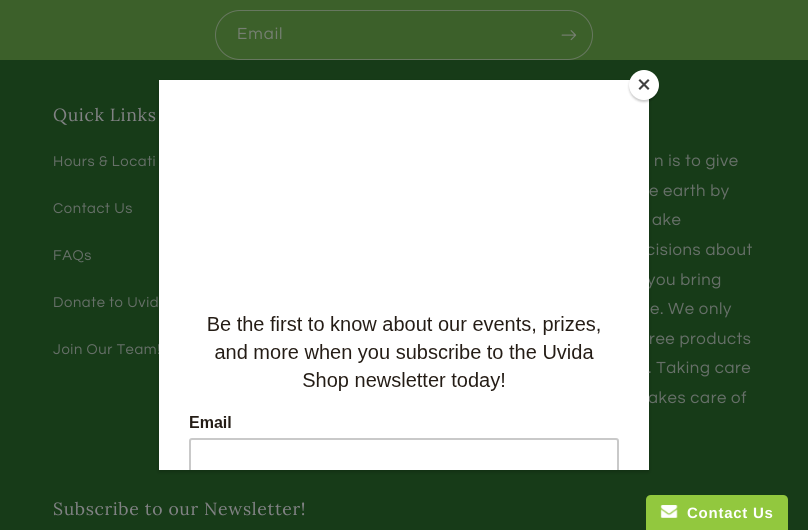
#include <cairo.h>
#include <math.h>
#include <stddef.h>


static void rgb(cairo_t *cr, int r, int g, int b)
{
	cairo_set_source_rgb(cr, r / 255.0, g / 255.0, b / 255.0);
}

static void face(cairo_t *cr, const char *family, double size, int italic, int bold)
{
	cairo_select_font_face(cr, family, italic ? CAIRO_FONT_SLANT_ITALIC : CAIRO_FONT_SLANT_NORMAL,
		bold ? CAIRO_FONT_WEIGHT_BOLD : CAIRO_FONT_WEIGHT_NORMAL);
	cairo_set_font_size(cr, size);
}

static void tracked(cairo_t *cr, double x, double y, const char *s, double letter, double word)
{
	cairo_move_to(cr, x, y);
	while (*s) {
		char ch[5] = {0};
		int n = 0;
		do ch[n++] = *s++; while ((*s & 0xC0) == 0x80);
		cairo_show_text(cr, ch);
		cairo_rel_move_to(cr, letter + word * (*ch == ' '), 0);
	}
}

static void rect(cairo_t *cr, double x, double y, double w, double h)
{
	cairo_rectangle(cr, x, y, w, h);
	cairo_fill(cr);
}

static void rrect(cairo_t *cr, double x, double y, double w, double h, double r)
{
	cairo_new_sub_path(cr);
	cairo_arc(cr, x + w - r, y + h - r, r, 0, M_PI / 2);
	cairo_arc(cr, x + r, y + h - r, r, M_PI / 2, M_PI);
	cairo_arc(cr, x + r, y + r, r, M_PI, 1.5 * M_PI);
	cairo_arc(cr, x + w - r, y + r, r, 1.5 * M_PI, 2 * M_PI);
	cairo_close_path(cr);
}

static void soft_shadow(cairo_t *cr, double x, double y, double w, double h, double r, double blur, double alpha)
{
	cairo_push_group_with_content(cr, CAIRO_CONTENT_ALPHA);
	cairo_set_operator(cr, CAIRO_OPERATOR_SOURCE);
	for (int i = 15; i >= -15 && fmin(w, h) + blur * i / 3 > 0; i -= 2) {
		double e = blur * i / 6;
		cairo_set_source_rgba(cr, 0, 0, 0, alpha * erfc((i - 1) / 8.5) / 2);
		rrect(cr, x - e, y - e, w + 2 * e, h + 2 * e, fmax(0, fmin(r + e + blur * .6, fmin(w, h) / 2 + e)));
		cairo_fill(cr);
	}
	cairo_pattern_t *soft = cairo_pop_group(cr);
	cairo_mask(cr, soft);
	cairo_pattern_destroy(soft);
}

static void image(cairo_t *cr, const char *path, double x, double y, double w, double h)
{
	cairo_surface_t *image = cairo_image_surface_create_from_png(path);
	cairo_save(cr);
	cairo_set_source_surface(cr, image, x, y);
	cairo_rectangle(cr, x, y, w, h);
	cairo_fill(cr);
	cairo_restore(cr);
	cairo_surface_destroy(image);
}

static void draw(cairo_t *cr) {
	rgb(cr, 23, 59, 24);
	cairo_paint(cr);
	rgb(cr, 60, 96, 42);
	rect(cr, 0, 0, 808, 60);
	rrect(cr, 215.5, 10.5, 377, 49, 24.5);
	rgb(cr, 103, 119, 95);
	cairo_set_line_width(cr, 1);
	cairo_stroke(cr);
	face(cr, "Questrial", 16.75, 0, 0);
	rgb(cr, 118, 127, 114);
	tracked(cr, 237, 39, "Email", 1, 0);
	image(cr, "image0.png", 561, 30, 16, 11);
	rgb(cr, 0, 0, 0);
	soft_shadow(cr, 159, 82, 490, 390, 0, 2, 0.2);
	face(cr, "Questrial", 14.75, 0, 0);
	rgb(cr, 103, 112, 105);
	tracked(cr, 53, 354, "Join Our Team!", 0.6, 0);
	face(cr, "Questrial", 16.75, 0, 0);
	tracked(cr, 646, 255, "cisions about", 0.6, 0);
	tracked(cr, 647, 285, "you bring", 0.6, 0);
	tracked(cr, 648, 403, "akes care of", 0.6, 0);
	image(cr, "image1.png", 159, 80, 490, 390);
	rgb(cr, 0, 0, 0);
	soft_shadow(cr, 629, 72, 30, 30, 15, 1, 0.2);
	rgb(cr, 255, 255, 255);
	cairo_arc(cr, 644, 85, 15, 0, 2 * M_PI);
	cairo_fill(cr);
	rgb(cr, 65, 65, 65);
	cairo_new_path(cr);
	cairo_move_to(cr, 648, 79);
	cairo_line_to(cr, 649.5, 80.5);
	cairo_line_to(cr, 640, 90);
	cairo_line_to(cr, 638.5, 88.5);
	cairo_close_path(cr);
	cairo_fill(cr);
	cairo_new_path(cr);
	cairo_move_to(cr, 638.5, 80.5);
	cairo_line_to(cr, 640, 79);
	cairo_line_to(cr, 649.5, 88.5);
	cairo_line_to(cr, 648, 90);
	cairo_close_path(cr);
	cairo_fill(cr);
	face(cr, "Lora", 17.6, 0, 0);
	rgb(cr, 129, 130, 132);
	tracked(cr, 53, 121, "Quick Links", 0.65, 0);
	face(cr, "Questrial", 14.75, 0, 0);
	rgb(cr, 103, 112, 105);
	tracked(cr, 53, 166, "Hours & Locati", 0.6, 0);
	tracked(cr, 53, 213, "Contact Us", 0.6, 0);
	tracked(cr, 53, 260, "FAQs", 0.6, 0);
	tracked(cr, 53, 307, "Donate to Uvid", 0.6, 0);
	face(cr, "Questrial", 16.75, 0, 0);
	tracked(cr, 654, 166, "n is to give", 0.6, 0);
	tracked(cr, 649, 196, "e earth by", 0.6, 0);
	tracked(cr, 652, 225, "ake", 0.6, 0);
	tracked(cr, 650, 314, "e. We only", 0.6, 0);
	tracked(cr, 649, 344, "ree products", 0.6, 0);
	tracked(cr, 648, 373, ". Taking care", 0.6, 0);
	face(cr, "Lora", 17.6, 0, 0);
	rgb(cr, 129, 130, 132);
	tracked(cr, 53, 515, "Subscribe to our Newsletter!", 0.65, 0);
	rgb(cr, 146, 200, 62);
	cairo_new_path(cr);
	cairo_move_to(cr, 651, 495);
	cairo_line_to(cr, 783, 495);
	cairo_curve_to(cr, 786, 495, 788, 497, 788, 500);
	cairo_line_to(cr, 788, 530);
	cairo_line_to(cr, 646, 530);
	cairo_line_to(cr, 646, 500);
	cairo_curve_to(cr, 646, 497, 648, 495, 651, 495);
	cairo_close_path(cr);
	cairo_fill(cr);
	image(cr, "image2.png", 660, 505, 18, 13);
	face(cr, "Liberation Sans", 15, 0, 1);
	rgb(cr, 255, 255, 255);
	tracked(cr, 687, 518, "Contact Us", 0.75, 0);
}

int main(void) {
	cairo_surface_t *surface = cairo_image_surface_create(CAIRO_FORMAT_RGB24, 808, 530);
	cairo_t *cr = cairo_create(surface);
	cairo_font_options_t *options = cairo_font_options_create();
	cairo_font_options_set_hint_metrics(options, CAIRO_HINT_METRICS_OFF);
	cairo_font_options_set_hint_style(options, CAIRO_HINT_STYLE_NONE);
	cairo_set_font_options(cr, options);
	cairo_set_miter_limit(cr, 4);
	draw(cr);
	cairo_surface_write_to_png(surface, "render.png");
	cairo_font_options_destroy(options);
	cairo_destroy(cr);
	cairo_surface_destroy(surface);
	return 0;
}
